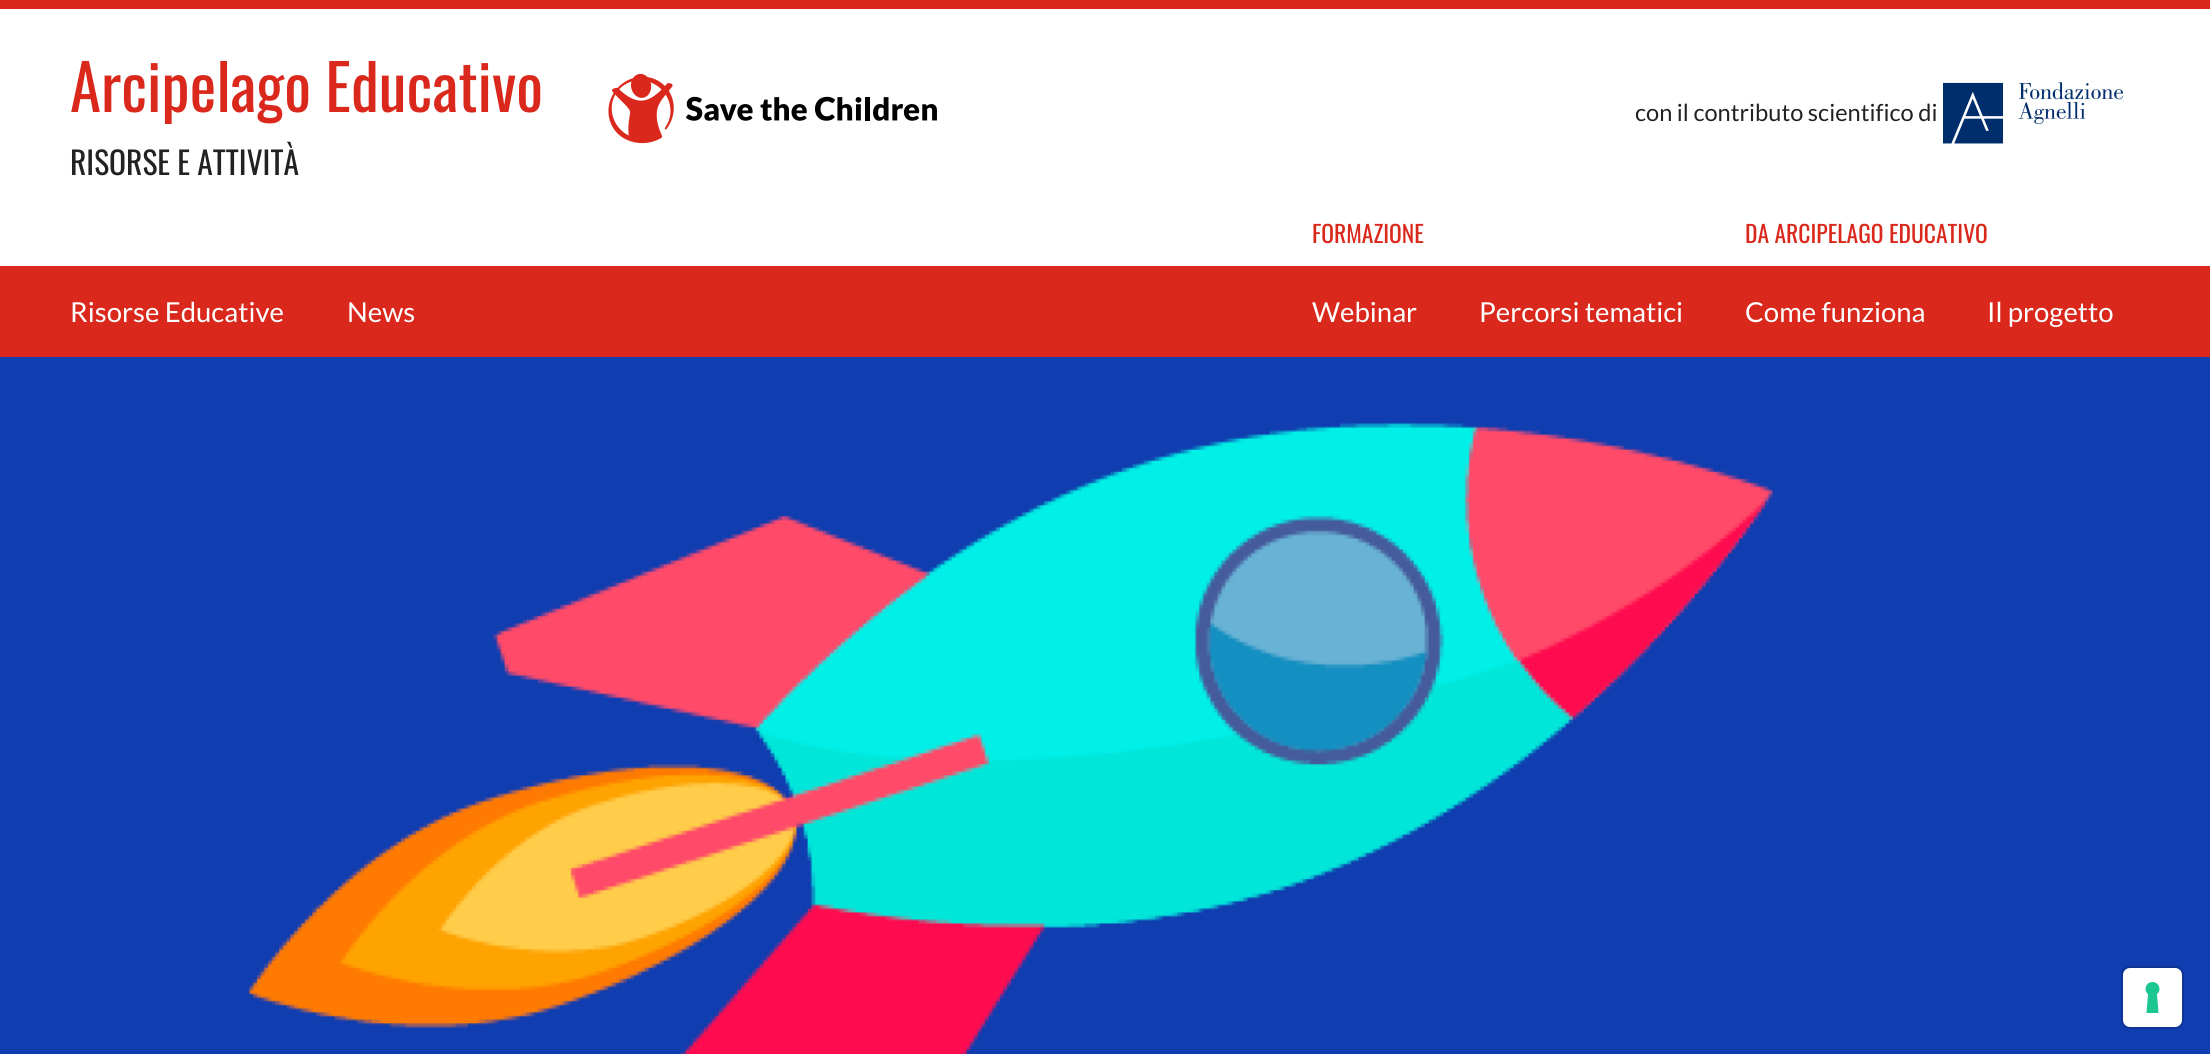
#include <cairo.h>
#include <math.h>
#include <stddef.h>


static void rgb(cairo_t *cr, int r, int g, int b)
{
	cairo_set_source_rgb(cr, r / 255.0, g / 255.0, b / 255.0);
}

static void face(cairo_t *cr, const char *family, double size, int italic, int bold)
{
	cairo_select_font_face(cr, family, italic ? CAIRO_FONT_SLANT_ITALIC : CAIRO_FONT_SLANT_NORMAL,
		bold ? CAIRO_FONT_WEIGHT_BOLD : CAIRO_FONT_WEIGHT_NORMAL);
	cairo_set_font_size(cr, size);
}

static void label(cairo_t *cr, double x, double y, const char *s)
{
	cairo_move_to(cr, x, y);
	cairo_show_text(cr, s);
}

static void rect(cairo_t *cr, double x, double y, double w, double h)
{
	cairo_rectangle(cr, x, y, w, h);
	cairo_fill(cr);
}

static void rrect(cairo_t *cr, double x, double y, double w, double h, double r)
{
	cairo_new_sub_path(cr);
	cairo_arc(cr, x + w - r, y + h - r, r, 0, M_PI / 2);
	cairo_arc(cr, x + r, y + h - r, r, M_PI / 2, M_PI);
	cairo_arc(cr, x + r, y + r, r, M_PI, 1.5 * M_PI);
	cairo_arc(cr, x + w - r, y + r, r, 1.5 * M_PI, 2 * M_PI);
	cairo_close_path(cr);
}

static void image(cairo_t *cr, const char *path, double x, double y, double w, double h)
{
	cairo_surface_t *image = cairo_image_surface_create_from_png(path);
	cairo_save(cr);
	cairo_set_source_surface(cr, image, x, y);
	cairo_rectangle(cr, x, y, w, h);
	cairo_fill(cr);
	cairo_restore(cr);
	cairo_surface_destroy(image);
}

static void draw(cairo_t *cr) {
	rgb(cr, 255, 255, 255);
	cairo_paint(cr);
	rgb(cr, 218, 41, 28);
	rect(cr, 0, 0, 2210, 9);
	face(cr, "Oswald", 63, 0, 0);
	label(cr, 70, 112, "Arcipelago Educativo");
	face(cr, "Oswald", 31.5, 0, 0);
	rgb(cr, 34, 34, 33);
	label(cr, 70, 175, "RISORSE E ATTIVITÀ");
	image(cr, "image0.png", 608, 73, 329, 71);
	face(cr, "Lato", 23.6, 0, 0);
	label(cr, 1635, 121, "con il contributo scientifico di");
	image(cr, "image1.png", 1943, 82, 180, 62);
	rgb(cr, 218, 41, 28);
	rect(cr, 0, 266, 2210, 91);
	face(cr, "Lato", 27.5, 0, 0);
	rgb(cr, 255, 255, 255);
	label(cr, 70, 322, "Risorse Educative");
	label(cr, 347, 322, "News");
	face(cr, "Oswald", 23.6, 0, 0);
	rgb(cr, 218, 41, 28);
	label(cr, 1312, 243, "FORMAZIONE");
	face(cr, "Lato", 27.5, 0, 0);
	rgb(cr, 255, 255, 255);
	label(cr, 1312, 322, "Webinar");
	label(cr, 1479, 322, "Percorsi tematici");
	face(cr, "Oswald", 23.6, 0, 0);
	rgb(cr, 218, 41, 28);
	label(cr, 1745, 243, "DA ARCIPELAGO EDUCATIVO");
	face(cr, "Lato", 27.5, 0, 0);
	rgb(cr, 255, 255, 255);
	label(cr, 1745, 322, "Come funziona");
	label(cr, 1987, 322, "Il progetto");
	image(cr, "image2.png", 0, 357, 2210, 697);
	rrect(cr, 2122, 967, 61, 61, 8);
	rgb(cr, 14, 52, 149);
	cairo_stroke(cr);
	rgb(cr, 255, 255, 255);
	rrect(cr, 2123, 968, 59, 59, 7);
	cairo_fill(cr);
	rgb(cr, 28, 198, 145);
	cairo_set_fill_rule(cr, CAIRO_FILL_RULE_EVEN_ODD);
	cairo_new_path(cr);
	cairo_move_to(cr, 2152.5, 982);
	cairo_curve_to(cr, 2159, 982, 2162, 990, 2157, 994);
	cairo_line_to(cr, 2158.5, 1013);
	cairo_line_to(cr, 2146.5, 1013);
	cairo_line_to(cr, 2148, 994);
	cairo_curve_to(cr, 2143, 990, 2146, 982, 2152.5, 982);
	cairo_close_path(cr);
	cairo_fill(cr);
}

int main(void) {
	cairo_surface_t *surface = cairo_image_surface_create(CAIRO_FORMAT_RGB24, 2210, 1054);
	cairo_t *cr = cairo_create(surface);
	cairo_font_options_t *options = cairo_font_options_create();
	cairo_font_options_set_hint_metrics(options, CAIRO_HINT_METRICS_OFF);
	cairo_font_options_set_hint_style(options, CAIRO_HINT_STYLE_NONE);
	cairo_set_font_options(cr, options);
	cairo_set_miter_limit(cr, 4);
	draw(cr);
	cairo_surface_write_to_png(surface, "render.png");
	cairo_font_options_destroy(options);
	cairo_destroy(cr);
	cairo_surface_destroy(surface);
	return 0;
}
